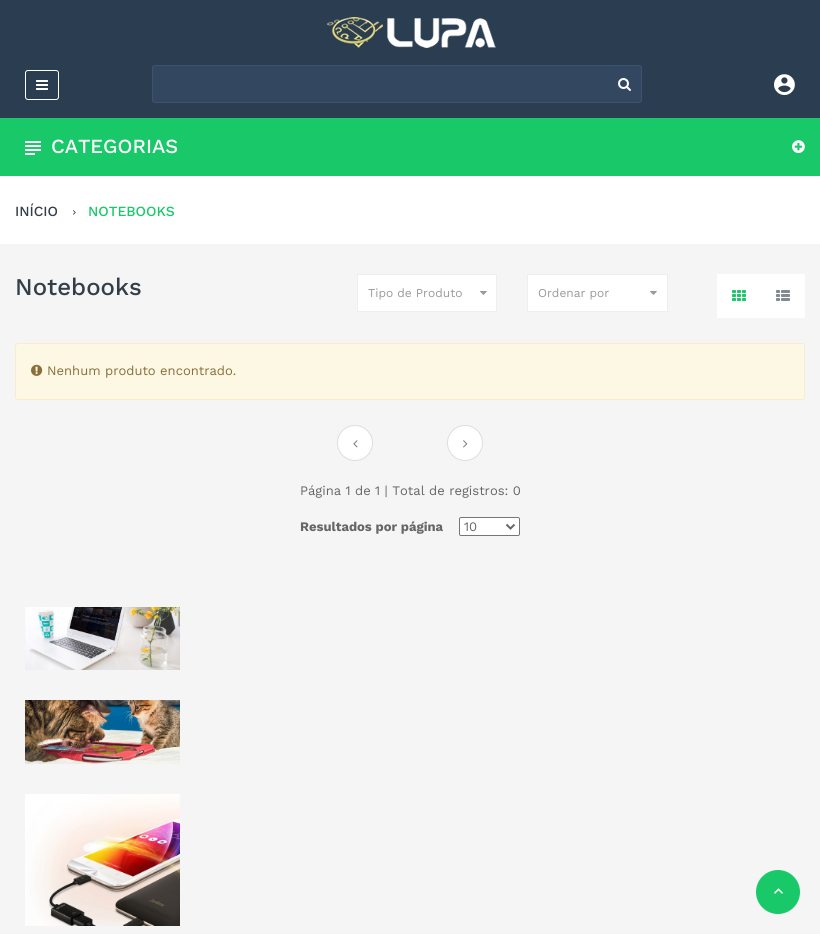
#include <cairo.h>
#include <math.h>
#include <stddef.h>


static void rgb(cairo_t *cr, int r, int g, int b)
{
	cairo_set_source_rgb(cr, r / 255.0, g / 255.0, b / 255.0);
}

static void face(cairo_t *cr, const char *family, double size, int italic, int bold)
{
	cairo_select_font_face(cr, family, italic ? CAIRO_FONT_SLANT_ITALIC : CAIRO_FONT_SLANT_NORMAL,
		bold ? CAIRO_FONT_WEIGHT_BOLD : CAIRO_FONT_WEIGHT_NORMAL);
	cairo_set_font_size(cr, size);
}

static void label(cairo_t *cr, double x, double y, const char *s)
{
	cairo_move_to(cr, x, y);
	cairo_show_text(cr, s);
}

static void rect(cairo_t *cr, double x, double y, double w, double h)
{
	cairo_rectangle(cr, x, y, w, h);
	cairo_fill(cr);
}

static void rrect(cairo_t *cr, double x, double y, double w, double h, double r)
{
	cairo_new_sub_path(cr);
	cairo_arc(cr, x + w - r, y + h - r, r, 0, M_PI / 2);
	cairo_arc(cr, x + r, y + h - r, r, M_PI / 2, M_PI);
	cairo_arc(cr, x + r, y + r, r, M_PI, 1.5 * M_PI);
	cairo_arc(cr, x + w - r, y + r, r, 1.5 * M_PI, 2 * M_PI);
	cairo_close_path(cr);
}

static void image(cairo_t *cr, const char *path, double x, double y, double w, double h)
{
	cairo_surface_t *image = cairo_image_surface_create_from_png(path);
	cairo_save(cr);
	cairo_set_source_surface(cr, image, x, y);
	cairo_rectangle(cr, x, y, w, h);
	cairo_fill(cr);
	cairo_restore(cr);
	cairo_surface_destroy(image);
}

static void draw(cairo_t *cr) {
	rgb(cr, 245, 245, 245);
	cairo_paint(cr);
	rgb(cr, 43, 61, 81);
	rect(cr, 0, 0, 820, 118);
	image(cr, "image0.png", 327, 17, 169, 31);
	rrect(cr, 25.5, 70.5, 33, 29, 2.5);
	rgb(cr, 255, 255, 255);
	cairo_set_line_width(cr, 1);
	cairo_stroke(cr);
	image(cr, "image1.png", 36, 80, 12, 10);
	rgb(cr, 51, 72, 96);
	rrect(cr, 152.5, 65.5, 489, 37, 2.5);
	cairo_fill_preserve(cr);
	rgb(cr, 61, 83, 109);
	cairo_stroke(cr);
	image(cr, "image2.png", 618, 78, 13, 13);
	image(cr, "image3.png", 774, 74, 21, 21);
	rgb(cr, 255, 255, 255);
	rect(cr, 0, 176, 820, 68);
	rgb(cr, 25, 200, 104);
	rect(cr, 0, 118, 820, 58);
	image(cr, "image4.png", 25, 141, 16, 14);
	face(cr, "Work Sans Medium", 20, 0, 0);
	rgb(cr, 255, 255, 255);
	label(cr, 51, 153, "CATEGORIAS");
	image(cr, "image5.png", 792, 140, 13, 14);
	face(cr, "Work Sans Medium", 14, 0, 0);
	rgb(cr, 51, 62, 72);
	label(cr, 15, 216, "INÍCIO");
	image(cr, "image6.png", 73, 210, 3, 5);
	rgb(cr, 25, 200, 104);
	label(cr, 88, 216, "NOTEBOOKS");
	face(cr, "Work Sans Medium", 24, 0, 0);
	rgb(cr, 51, 62, 72);
	label(cr, 15, 295, "Notebooks");
	rgb(cr, 255, 255, 255);
	cairo_rectangle(cr, 357.5, 274.5, 139, 37);
	cairo_fill_preserve(cr);
	rgb(cr, 238, 238, 238);
	cairo_stroke(cr);
	face(cr, "Work Sans", 12, 0, 0);
	rgb(cr, 153, 153, 153);
	label(cr, 368, 297, "Tipo de Produto");
	image(cr, "image7.png", 480, 291, 7, 4);
	rgb(cr, 255, 255, 255);
	cairo_rectangle(cr, 527.5, 274.5, 140, 37);
	cairo_fill_preserve(cr);
	rgb(cr, 238, 238, 238);
	cairo_stroke(cr);
	rgb(cr, 153, 153, 153);
	label(cr, 538, 297, "Ordenar por");
	image(cr, "image7.png", 650, 291, 7, 4);
	rgb(cr, 255, 255, 255);
	rect(cr, 717, 274, 88, 44);
	image(cr, "image8.png", 732, 290, 14, 11);
	image(cr, "image9.png", 776, 290, 14, 11);
	rgb(cr, 252, 248, 227);
	rrect(cr, 15.5, 343.5, 789, 56, 2.5);
	cairo_fill_preserve(cr);
	rgb(cr, 250, 235, 204);
	cairo_stroke(cr);
	image(cr, "image10.png", 31, 364, 12, 12);
	face(cr, "Work Sans", 13, 0, 0);
	rgb(cr, 138, 109, 59);
	label(cr, 47, 375, "Nenhum produto encontrado.");
	rgb(cr, 255, 255, 255);
	cairo_new_path(cr);
	cairo_arc(cr, 355, 443, 17.5, 0, 2 * M_PI);
	cairo_fill_preserve(cr);
	rgb(cr, 221, 221, 221);
	cairo_stroke(cr);
	image(cr, "image11.png", 353, 440, 5, 8);
	rgb(cr, 255, 255, 255);
	cairo_arc(cr, 465, 443, 17.5, 0, 2 * M_PI);
	cairo_fill_preserve(cr);
	rgb(cr, 221, 221, 221);
	cairo_stroke(cr);
	image(cr, "image12.png", 463, 440, 5, 8);
	rgb(cr, 102, 102, 102);
	label(cr, 300, 495, "Página 1 de 1 | Total de registros: 0");
	face(cr, "Work Sans", 13, 0, 1);
	label(cr, 300, 531, "Resultados por página");
	rgb(cr, 255, 255, 255);
	rrect(cr, 459.5, 517.5, 60, 18, 1.5);
	cairo_fill_preserve(cr);
	rgb(cr, 118, 118, 118);
	cairo_stroke(cr);
	cairo_new_path(cr);
	cairo_move_to(cr, 506.5, 524.5);
	cairo_line_to(cr, 510.5, 528.5);
	cairo_line_to(cr, 514.5, 524.5);
	rgb(cr, 102, 102, 102);
	cairo_set_line_width(cr, 2);
	cairo_stroke(cr);
	face(cr, "Work Sans", 13, 0, 0);
	label(cr, 464, 531, "10");
	image(cr, "image13.png", 25, 607, 155, 63);
	image(cr, "image14.png", 25, 700, 155, 64);
	image(cr, "image15.png", 25, 794, 155, 132);
	rgb(cr, 25, 200, 104);
	cairo_arc(cr, 778, 892, 22, 0, 2 * M_PI);
	cairo_fill(cr);
	image(cr, "image16.png", 774, 888, 9, 6);
}

int main(void) {
	cairo_surface_t *surface = cairo_image_surface_create(CAIRO_FORMAT_RGB24, 820, 934);
	cairo_t *cr = cairo_create(surface);
	cairo_font_options_t *options = cairo_font_options_create();
	cairo_font_options_set_hint_metrics(options, CAIRO_HINT_METRICS_OFF);
	cairo_font_options_set_hint_style(options, CAIRO_HINT_STYLE_NONE);
	cairo_set_font_options(cr, options);
	cairo_set_miter_limit(cr, 4);
	draw(cr);
	cairo_surface_write_to_png(surface, "render.png");
	cairo_font_options_destroy(options);
	cairo_destroy(cr);
	cairo_surface_destroy(surface);
	return 0;
}
